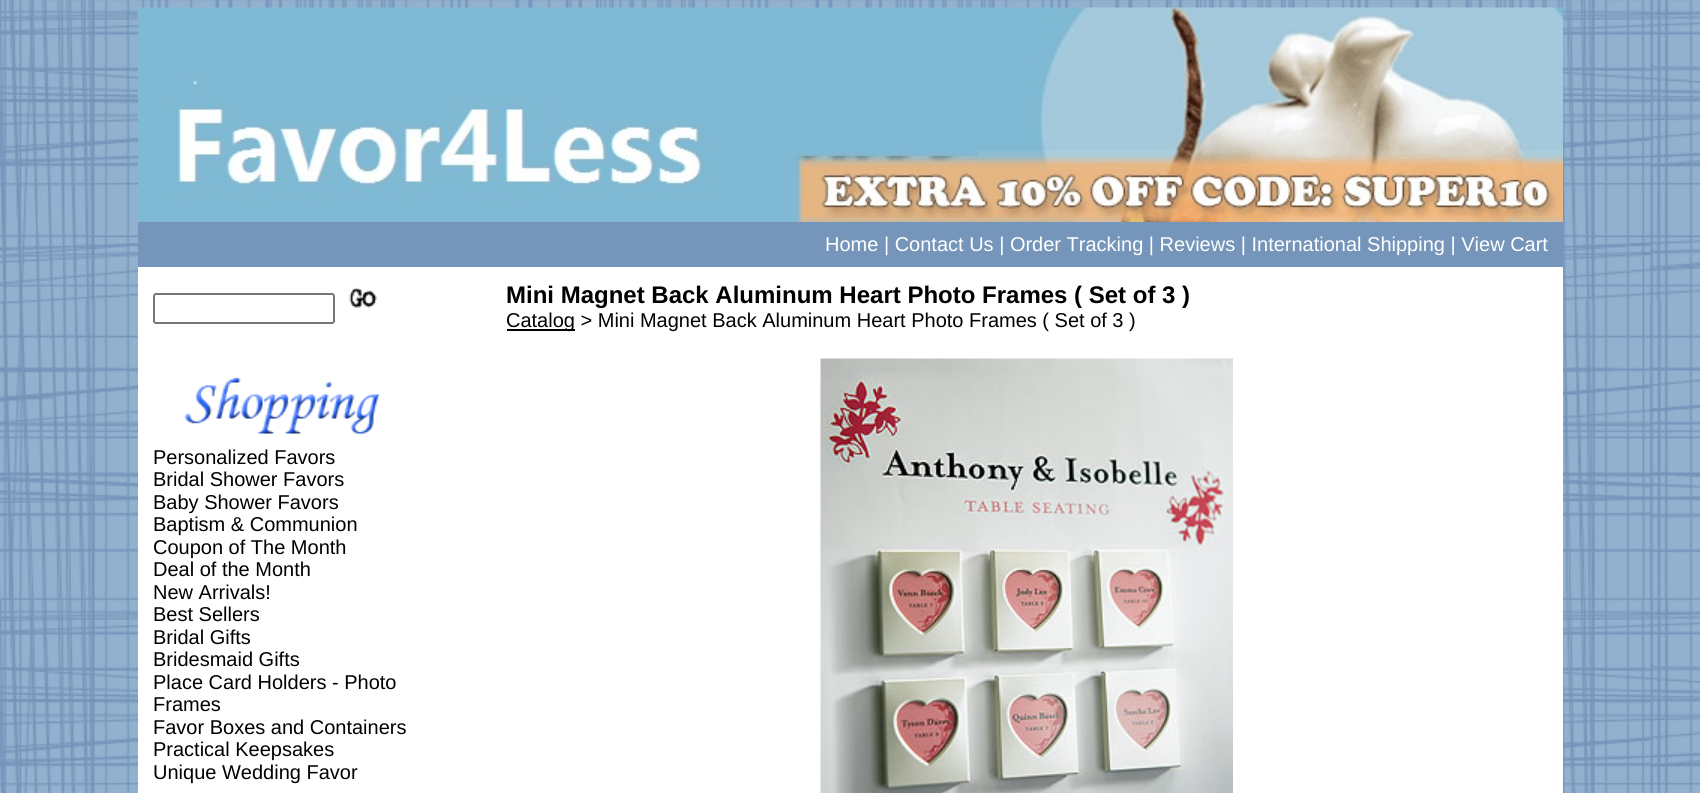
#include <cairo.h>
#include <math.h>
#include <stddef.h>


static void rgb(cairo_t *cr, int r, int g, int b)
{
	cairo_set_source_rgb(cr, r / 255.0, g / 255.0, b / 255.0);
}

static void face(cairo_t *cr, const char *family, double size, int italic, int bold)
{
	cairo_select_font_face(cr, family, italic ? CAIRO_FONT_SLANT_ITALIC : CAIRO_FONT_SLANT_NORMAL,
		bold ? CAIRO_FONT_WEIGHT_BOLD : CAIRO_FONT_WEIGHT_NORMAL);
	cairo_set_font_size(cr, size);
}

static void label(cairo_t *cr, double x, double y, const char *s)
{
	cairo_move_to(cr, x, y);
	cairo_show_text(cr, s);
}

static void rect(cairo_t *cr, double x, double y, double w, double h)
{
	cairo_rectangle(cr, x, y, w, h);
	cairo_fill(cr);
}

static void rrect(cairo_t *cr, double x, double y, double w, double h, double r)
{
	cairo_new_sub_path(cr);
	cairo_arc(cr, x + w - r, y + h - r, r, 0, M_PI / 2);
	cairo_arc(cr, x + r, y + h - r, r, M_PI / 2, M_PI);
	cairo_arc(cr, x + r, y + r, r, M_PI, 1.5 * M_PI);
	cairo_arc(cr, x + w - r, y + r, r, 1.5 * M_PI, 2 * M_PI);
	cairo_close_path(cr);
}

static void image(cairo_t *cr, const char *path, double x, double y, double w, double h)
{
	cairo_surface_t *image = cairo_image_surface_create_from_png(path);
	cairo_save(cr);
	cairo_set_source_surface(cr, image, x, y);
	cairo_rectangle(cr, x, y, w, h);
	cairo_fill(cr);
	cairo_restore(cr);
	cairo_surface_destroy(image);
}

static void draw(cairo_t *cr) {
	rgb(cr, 255, 255, 255);
	cairo_paint(cr);
	image(cr, "image0.png", 0, 0, 1700, 793);
	rgb(cr, 255, 255, 255);
	rect(cr, 138, 267, 1425, 526);
	image(cr, "image1.png", 138, 7, 1425, 215);
	rgb(cr, 117, 149, 187);
	rect(cr, 138, 222, 1425, 45);
	face(cr, "Liberation Sans", 20, 0, 0);
	rgb(cr, 255, 255, 255);
	label(cr, 825, 251, "Home | Contact Us | Order Tracking | Reviews | International Shipping | View Cart");
	face(cr, "Liberation Sans", 24, 0, 1);
	rgb(cr, 0, 0, 0);
	label(cr, 506, 303, "Mini Magnet Back Aluminum Heart Photo Frames ( Set of 3 )");
	rect(cr, 507, 329, 68, 2);
	face(cr, "Liberation Sans", 20, 0, 0);
	label(cr, 506, 327, "Catalog > Mini Magnet Back Aluminum Heart Photo Frames ( Set of 3 )");
	image(cr, "image2.png", 820, 358, 413, 435);
	rrect(cr, 154, 294, 180, 29, 2);
	rgb(cr, 118, 118, 118);
	cairo_stroke(cr);
	image(cr, "image3.png", 349, 287, 28, 21);
	image(cr, "image4.png", 184, 377, 196, 57);
	rgb(cr, 0, 0, 0);
	label(cr, 153, 464, "Personalized Favors");
	label(cr, 153, 486, "Bridal Shower Favors");
	label(cr, 153, 509, "Baby Shower Favors");
	label(cr, 153, 531, "Baptism & Communion");
	label(cr, 153, 554, "Coupon of The Month");
	label(cr, 153, 576, "Deal of the Month");
	label(cr, 153, 599, "New Arrivals!");
	label(cr, 153, 621, "Best Sellers");
	label(cr, 153, 644, "Bridal Gifts");
	label(cr, 153, 666, "Bridesmaid Gifts");
	label(cr, 153, 689, "Place Card Holders - Photo");
	label(cr, 153, 711, "Frames");
	label(cr, 153, 734, "Favor Boxes and Containers");
	label(cr, 153, 756, "Practical Keepsakes");
	label(cr, 153, 779, "Unique Wedding Favor");
}

int main(void) {
	cairo_surface_t *surface = cairo_image_surface_create(CAIRO_FORMAT_RGB24, 1700, 793);
	cairo_t *cr = cairo_create(surface);
	cairo_font_options_t *options = cairo_font_options_create();
	cairo_font_options_set_hint_metrics(options, CAIRO_HINT_METRICS_OFF);
	cairo_font_options_set_hint_style(options, CAIRO_HINT_STYLE_NONE);
	cairo_set_font_options(cr, options);
	cairo_set_miter_limit(cr, 4);
	draw(cr);
	cairo_surface_write_to_png(surface, "render.png");
	cairo_font_options_destroy(options);
	cairo_destroy(cr);
	cairo_surface_destroy(surface);
	return 0;
}
